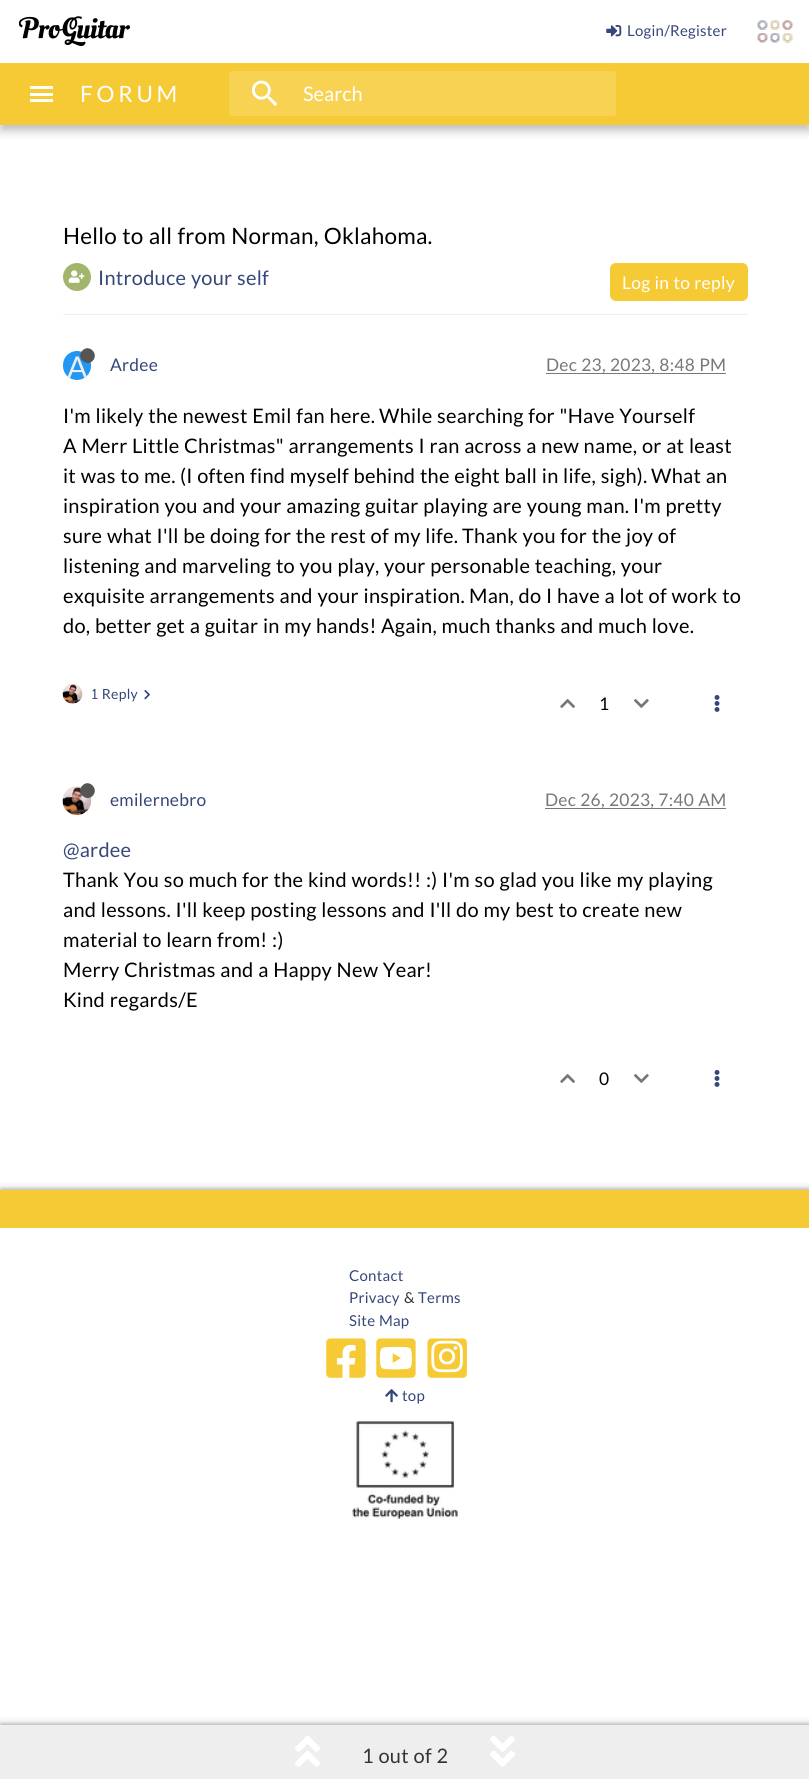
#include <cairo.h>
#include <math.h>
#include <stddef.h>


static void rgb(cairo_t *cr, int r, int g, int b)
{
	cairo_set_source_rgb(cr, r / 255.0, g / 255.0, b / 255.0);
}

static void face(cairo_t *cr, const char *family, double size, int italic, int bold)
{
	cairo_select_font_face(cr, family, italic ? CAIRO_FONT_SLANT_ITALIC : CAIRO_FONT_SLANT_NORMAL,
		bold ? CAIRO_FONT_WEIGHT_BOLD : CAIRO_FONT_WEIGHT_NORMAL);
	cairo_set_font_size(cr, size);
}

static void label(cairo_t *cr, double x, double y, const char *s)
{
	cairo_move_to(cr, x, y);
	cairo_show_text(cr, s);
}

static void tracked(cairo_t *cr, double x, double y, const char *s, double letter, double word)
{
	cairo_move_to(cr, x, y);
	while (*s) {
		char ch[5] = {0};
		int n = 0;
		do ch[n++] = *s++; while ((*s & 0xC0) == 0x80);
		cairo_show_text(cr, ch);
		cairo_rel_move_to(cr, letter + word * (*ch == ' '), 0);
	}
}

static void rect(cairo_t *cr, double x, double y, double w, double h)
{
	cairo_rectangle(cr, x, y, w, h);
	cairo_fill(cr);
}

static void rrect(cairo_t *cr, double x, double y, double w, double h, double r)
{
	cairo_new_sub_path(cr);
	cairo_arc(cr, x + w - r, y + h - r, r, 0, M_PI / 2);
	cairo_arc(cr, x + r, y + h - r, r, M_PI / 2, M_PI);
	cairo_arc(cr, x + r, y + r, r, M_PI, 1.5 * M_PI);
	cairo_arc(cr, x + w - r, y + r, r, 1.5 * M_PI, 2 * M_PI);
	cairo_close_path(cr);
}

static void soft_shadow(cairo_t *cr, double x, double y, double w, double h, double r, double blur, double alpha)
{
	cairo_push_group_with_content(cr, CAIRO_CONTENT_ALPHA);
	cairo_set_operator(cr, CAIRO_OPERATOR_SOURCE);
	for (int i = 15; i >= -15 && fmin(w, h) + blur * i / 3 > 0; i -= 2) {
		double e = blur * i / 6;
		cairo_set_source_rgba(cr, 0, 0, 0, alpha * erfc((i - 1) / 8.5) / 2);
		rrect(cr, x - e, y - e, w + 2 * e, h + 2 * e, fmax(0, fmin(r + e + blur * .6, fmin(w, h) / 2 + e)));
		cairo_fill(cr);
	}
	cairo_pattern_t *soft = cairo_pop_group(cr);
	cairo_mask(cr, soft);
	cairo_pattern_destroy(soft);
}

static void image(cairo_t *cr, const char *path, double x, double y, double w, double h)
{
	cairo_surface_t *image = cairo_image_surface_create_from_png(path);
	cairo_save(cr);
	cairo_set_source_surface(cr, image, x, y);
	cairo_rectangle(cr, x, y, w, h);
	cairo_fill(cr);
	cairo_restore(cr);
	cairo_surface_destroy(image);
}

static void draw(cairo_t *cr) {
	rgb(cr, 255, 255, 255);
	cairo_paint(cr);
	image(cr, "image0.png", 19, 16, 111, 31);
	image(cr, "image1.png", 606, 25, 16, 12);
	face(cr, "Lato", 15, 0, 0);
	rgb(cr, 53, 71, 122);
	tracked(cr, 627, 36, "Login/Register", 0.25, 0);
	image(cr, "image2.png", 757, 20, 11, 10);
	image(cr, "image3.png", 770, 20, 10, 10);
	image(cr, "image4.png", 782, 20, 11, 10);
	image(cr, "image5.png", 757, 33, 11, 10);
	image(cr, "image6.png", 770, 33, 10, 10);
	image(cr, "image7.png", 782, 33, 11, 10);
	rgb(cr, 0, 0, 0);
	soft_shadow(cr, 0, 70, 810, 63, 0, 4, 0.16);
	soft_shadow(cr, 0, 66, 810, 63, 0, 2, 0.08);
	rgb(cr, 245, 202, 53);
	rect(cr, 0, 63, 809, 62);
	rgb(cr, 255, 255, 255);
	rect(cr, 30, 86, 23, 3);
	rect(cr, 30, 93, 23, 3);
	rect(cr, 30, 99, 23, 3);
	face(cr, "Lato", 22.5, 0, 0);
	tracked(cr, 80, 102, "FORUM", 3.75, 0);
	rgb(cr, 247, 210, 83);
	rrect(cr, 229, 71, 387, 45, 2.5);
	cairo_fill(cr);
	image(cr, "image8.png", 251, 80, 27, 26);
	face(cr, "Lato", 20, 0, 0);
	rgb(cr, 255, 255, 255);
	label(cr, 303, 101, "Search");
	face(cr, "Lato", 22.5, 0, 0);
	rgb(cr, 0, 0, 0);
	tracked(cr, 63, 244, "Hello to all from Norman, Oklahoma.", 0.25, 0.5);
	rgb(cr, 238, 238, 238);
	rect(cr, 63, 314, 685, 1);
	rgb(cr, 161, 181, 108);
	cairo_new_path(cr);
	cairo_arc(cr, 77, 277, 14, 0, 2 * M_PI);
	cairo_fill(cr);
	image(cr, "image9.png", 68, 270, 17, 13);
	face(cr, "Lato", 20, 0, 0);
	rgb(cr, 53, 71, 122);
	tracked(cr, 98, 285, "Introduce your self", 0.25, 0.5);
	rgb(cr, 245, 202, 53);
	rrect(cr, 610, 263, 138, 38, 6);
	cairo_fill(cr);
	face(cr, "Lato", 17.5, 0, 0);
	rgb(cr, 255, 255, 255);
	tracked(cr, 622, 289, "Log in to reply", 0.25, 0.5);
	rgb(cr, 33, 150, 243);
	rrect(cr, 63, 351, 28, 29, 14);
	cairo_fill(cr);
	cairo_save(cr);
	rrect(cr, 63, 351, 28, 29, 14);
	cairo_clip(cr);
	face(cr, "Lato", 30, 0, 0);
	rgb(cr, 238, 238, 238);
	tracked(cr, 67, 378, "A", 0.25, 0);
	cairo_restore(cr);
	rgb(cr, 85, 85, 85);
	cairo_new_path(cr);
	cairo_move_to(cr, 82.5, 350.5);
	cairo_curve_to(cr, 89, 343.5, 99.5, 354, 92.5, 361);
	cairo_curve_to(cr, 86, 367.5, 75.5, 357, 82.5, 350.5);
	cairo_close_path(cr);
	cairo_fill(cr);
	face(cr, "Lato", 17.4, 0, 0);
	rgb(cr, 53, 71, 122);
	tracked(cr, 110, 371, "Ardee", 0.25, 0);
	rgb(cr, 119, 119, 119);
	rect(cr, 546, 373, 180, 1);
	tracked(cr, 546, 371, "Dec 23, 2023, 8:48 PM", 0.25, 0.5);
	face(cr, "Lato", 20, 0, 0);
	rgb(cr, 0, 0, 0);
	tracked(cr, 63, 423, "I'm likely the newest Emil fan here.", 0.25, 0.5);
	tracked(cr, 379, 423, "While searching for \"Have Yourself", 0.25, 0.5);
	tracked(cr, 63, 453, "A Merr Little Christmas\" arrangements I ran across a new name, or at least", 0.25, 0.5);
	tracked(cr, 63, 483, "it was to me.", 0.25, 0.5);
	tracked(cr, 180, 483, "(I often find myself behind the eight ball in life, sigh).", 0.25, 0.5);
	tracked(cr, 651, 483, "What an", 0.25, 0.5);
	tracked(cr, 63, 513, "inspiration you and your amazing guitar playing are young man.", 0.25, 0.5);
	tracked(cr, 633, 513, "I'm pretty", 0.25, 0.5);
	tracked(cr, 63, 543, "sure what I'll be doing for the rest of my life.", 0.25, 0.5);
	tracked(cr, 462, 543, "Thank you for the joy of", 0.25, 0.5);
	tracked(cr, 63, 573, "listening and marveling to you play, your personable teaching, your", 0.25, 0.5);
	tracked(cr, 63, 603, "exquisite arrangements and your inspiration.", 0.25, 0.5);
	tracked(cr, 469, 603, "Man, do I have a lot of work to", 0.25, 0.5);
	tracked(cr, 63, 633, "do, better get a guitar in my hands!", 0.25, 0.5);
	tracked(cr, 381, 633, "Again, much thanks and much love.", 0.25, 0.5);
	face(cr, "Lato", 14, 0, 0);
	rgb(cr, 53, 71, 122);
	tracked(cr, 90, 699, "1 Reply", 0.25, 0.5);
	cairo_new_path(cr);
	cairo_arc(cr, 73, 694, 15, 0, 2 * M_PI);
	rgb(cr, 255, 255, 255);
	cairo_set_line_width(cr, 10);
	cairo_stroke(cr);
	image(cr, "image10.png", 62, 684, 21, 20);
	image(cr, "image11.png", 144, 690, 6, 10);
	image(cr, "image12.png", 560, 699, 15, 9);
	face(cr, "Lato", 17.4, 0, 0);
	rgb(cr, 0, 0, 0);
	tracked(cr, 599, 710, "1", 0.25, 0);
	image(cr, "image13.png", 634, 699, 15, 9);
	image(cr, "image14.png", 714, 695, 6, 17);
	image(cr, "image15.png", 62, 786, 30, 29);
	rgb(cr, 85, 85, 85);
	cairo_new_path(cr);
	cairo_move_to(cr, 82.5, 785.5);
	cairo_curve_to(cr, 89, 778.5, 99.5, 789, 92.5, 796);
	cairo_curve_to(cr, 86, 802.5, 75.5, 792, 82.5, 785.5);
	cairo_close_path(cr);
	cairo_fill(cr);
	rgb(cr, 53, 71, 122);
	tracked(cr, 110, 806, "emilernebro", 0.25, 0);
	rgb(cr, 119, 119, 119);
	rect(cr, 545, 808, 181, 1);
	tracked(cr, 545, 806, "Dec 26, 2023, 7:40 AM", 0.25, 0.5);
	face(cr, "Lato", 20, 0, 0);
	rgb(cr, 53, 71, 122);
	tracked(cr, 63, 857, "@ardee", 0.25, 0);
	cairo_save(cr);
	cairo_rectangle(cr, 63, 835, 685, 211);
	cairo_clip(cr);
	rgb(cr, 0, 0, 0);
	tracked(cr, 63, 887, "Thank You so much for the kind words!! :) I'm so glad you like my playing", 0.25, 0.5);
	cairo_restore(cr);
	rgb(cr, 0, 0, 0);
	tracked(cr, 63, 917, "and lessons. I'll keep posting lessons and I'll do my best to create new", 0.25, 0.5);
	tracked(cr, 63, 947, "material to learn from! :)", 0.25, 0.5);
	tracked(cr, 63, 977, "Merry Christmas and a Happy New Year!", 0.25, 0.5);
	tracked(cr, 63, 1007, "Kind regards/E", 0.25, 0.5);
	image(cr, "image12.png", 560, 1074, 15, 9);
	face(cr, "Lato", 17.4, 0, 0);
	tracked(cr, 599, 1085, "0", 0.25, 0);
	image(cr, "image13.png", 634, 1074, 15, 9);
	image(cr, "image14.png", 714, 1070, 6, 17);
	rgb(cr, 0, 0, 0);
	soft_shadow(cr, 0, 1723, 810, 55, 0, 1, 0.16);
	soft_shadow(cr, 0, 1720, 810, 55, 0, 2.5, 0.08);
	rgb(cr, 238, 238, 238);
	rect(cr, 0, 1725, 809, 54);
	image(cr, "image16.png", 295, 1735, 25, 32);
	face(cr, "Lato", 20, 0, 0);
	rgb(cr, 51, 51, 51);
	tracked(cr, 362, 1763, "1 out of 2", 0.25, 0.5);
	image(cr, "image17.png", 490, 1735, 25, 32);
	rgb(cr, 0, 0, 0);
	soft_shadow(cr, 0, 1188, 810, 37, 0, 1, 0.16);
	soft_shadow(cr, 0, 1185, 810, 38, 0, 2.5, 0.08);
	rgb(cr, 245, 202, 53);
	rect(cr, 0, 1190, 809, 38);
	face(cr, "Lato", 15, 0, 0);
	rgb(cr, 53, 71, 122);
	tracked(cr, 349, 1281, "Contact", 0.25, 0);
	tracked(cr, 349, 1303, "Privacy", 0.25, 0);
	rgb(cr, 51, 51, 51);
	tracked(cr, 404, 1303, "&", 0.25, 0);
	rgb(cr, 53, 71, 122);
	tracked(cr, 418, 1303, "Terms", 0.25, 0);
	tracked(cr, 349, 1326, "Site Map", 0.25, 0.5);
	image(cr, "image18.png", 326, 1338, 40, 40);
	image(cr, "image19.png", 376, 1338, 40, 40);
	image(cr, "image20.png", 427, 1338, 40, 40);
	image(cr, "image21.png", 431, 1340, 32, 33);
	image(cr, "image22.png", 385, 1389, 13, 14);
	tracked(cr, 402, 1401, "top", 0.25, 0);
	image(cr, "image23.png", 352, 1421, 106, 98);
}

int main(void) {
	cairo_surface_t *surface = cairo_image_surface_create(CAIRO_FORMAT_RGB24, 809, 1779);
	cairo_t *cr = cairo_create(surface);
	cairo_font_options_t *options = cairo_font_options_create();
	cairo_font_options_set_hint_metrics(options, CAIRO_HINT_METRICS_OFF);
	cairo_font_options_set_hint_style(options, CAIRO_HINT_STYLE_NONE);
	cairo_set_font_options(cr, options);
	cairo_set_miter_limit(cr, 4);
	draw(cr);
	cairo_surface_write_to_png(surface, "render.png");
	cairo_font_options_destroy(options);
	cairo_destroy(cr);
	cairo_surface_destroy(surface);
	return 0;
}
